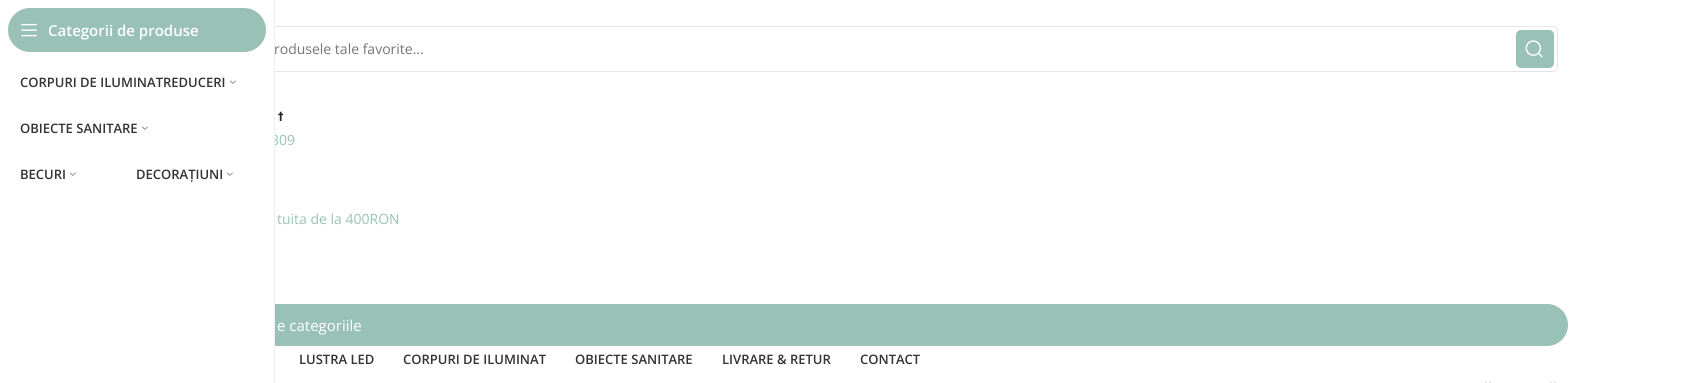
#include <cairo.h>
#include <math.h>
#include <stddef.h>


static void rgb(cairo_t *cr, int r, int g, int b)
{
	cairo_set_source_rgb(cr, r / 255.0, g / 255.0, b / 255.0);
}

static void face(cairo_t *cr, const char *family, double size, int italic, int bold)
{
	cairo_select_font_face(cr, family, italic ? CAIRO_FONT_SLANT_ITALIC : CAIRO_FONT_SLANT_NORMAL,
		bold ? CAIRO_FONT_WEIGHT_BOLD : CAIRO_FONT_WEIGHT_NORMAL);
	cairo_set_font_size(cr, size);
}

static void label(cairo_t *cr, double x, double y, const char *s)
{
	cairo_move_to(cr, x, y);
	cairo_show_text(cr, s);
}

static void rect(cairo_t *cr, double x, double y, double w, double h)
{
	cairo_rectangle(cr, x, y, w, h);
	cairo_fill(cr);
}

static void rrect(cairo_t *cr, double x, double y, double w, double h, double r)
{
	cairo_new_sub_path(cr);
	cairo_arc(cr, x + w - r, y + h - r, r, 0, M_PI / 2);
	cairo_arc(cr, x + r, y + h - r, r, M_PI / 2, M_PI);
	cairo_arc(cr, x + r, y + r, r, M_PI, 1.5 * M_PI);
	cairo_arc(cr, x + w - r, y + r, r, 1.5 * M_PI, 2 * M_PI);
	cairo_close_path(cr);
}

static void image(cairo_t *cr, const char *path, double x, double y, double w, double h)
{
	cairo_surface_t *image = cairo_image_surface_create_from_png(path);
	cairo_save(cr);
	cairo_set_source_surface(cr, image, x, y);
	cairo_rectangle(cr, x, y, w, h);
	cairo_fill(cr);
	cairo_restore(cr);
	cairo_surface_destroy(image);
}

static void draw(cairo_t *cr) {
	rgb(cr, 255, 255, 255);
	cairo_paint(cr);
	rrect(cr, 208.5, 26.5, 1349, 45, 4.5);
	rgb(cr, 230, 230, 230);
	cairo_set_line_width(cr, 1);
	cairo_stroke(cr);
	face(cr, "Open Sans", 14, 0, 0);
	rgb(cr, 154, 193, 182);
	label(cr, 271, 145, "309");
	rrect(cr, 198, 304, 1370, 42, 21);
	cairo_fill(cr);
	rgb(cr, 255, 255, 255);
	rect(cr, 198, 26, 76, 320);
	rgb(cr, 118, 118, 118);
	label(cr, 274, 54, "rodusele tale favorite...");
	rgb(cr, 239, 239, 239);
	rect(cr, 274, 0, 1, 383);
	rgb(cr, 154, 193, 182);
	rrect(cr, 8, 8, 258, 44, 22);
	cairo_fill(cr);
	image(cr, "image0.png", 21, 23, 16, 14);
	face(cr, "Open Sans SemiBold", 15, 0, 0);
	rgb(cr, 255, 255, 255);
	label(cr, 48, 36, "Categorii de produse");
	face(cr, "Open Sans SemiBold", 13, 0, 0);
	rgb(cr, 51, 51, 51);
	label(cr, 20, 87, "CORPURI DE ILUMINATREDUCERI");
	image(cr, "image1.png", 230, 80, 6, 4);
	label(cr, 20, 133, "OBIECTE SANITARE");
	image(cr, "image1.png", 142, 126, 6, 4);
	label(cr, 20, 179, "BECURI");
	image(cr, "image1.png", 70, 172, 6, 4);
	label(cr, 136, 179, "DECORAȚIUNI");
	image(cr, "image1.png", 227, 172, 6, 4);
	rgb(cr, 154, 193, 182);
	rrect(cr, 1516, 30, 38, 38, 5);
	cairo_fill(cr);
	image(cr, "image2.png", 1525, 40, 18, 18);
	face(cr, "Lexend Deca Medium", 14, 0, 0);
	rgb(cr, 36, 36, 36);
	label(cr, 278, 121, "t");
	face(cr, "Open Sans", 14, 0, 0);
	rgb(cr, 154, 193, 182);
	label(cr, 277, 224, "tuita de la 400RON");
	face(cr, "Open Sans", 15, 0, 0);
	rgb(cr, 255, 255, 255);
	label(cr, 277, 331, "e categoriile");
	face(cr, "Open Sans SemiBold", 13, 0, 0);
	rgb(cr, 51, 51, 51);
	label(cr, 299, 364, "LUSTRA LED");
	label(cr, 403, 364, "CORPURI DE ILUMINAT");
	label(cr, 575, 364, "OBIECTE SANITARE");
	label(cr, 722, 364, "LIVRARE & RETUR");
	label(cr, 860, 364, "CONTACT");
	image(cr, "image3.png", 1485, 381, 6, 2);
	image(cr, "image3.png", 1550, 381, 6, 2);
}

int main(void) {
	cairo_surface_t *surface = cairo_image_surface_create(CAIRO_FORMAT_RGB24, 1705, 383);
	cairo_t *cr = cairo_create(surface);
	cairo_font_options_t *options = cairo_font_options_create();
	cairo_font_options_set_hint_metrics(options, CAIRO_HINT_METRICS_OFF);
	cairo_font_options_set_hint_style(options, CAIRO_HINT_STYLE_NONE);
	cairo_set_font_options(cr, options);
	cairo_set_miter_limit(cr, 4);
	draw(cr);
	cairo_surface_write_to_png(surface, "render.png");
	cairo_font_options_destroy(options);
	cairo_destroy(cr);
	cairo_surface_destroy(surface);
	return 0;
}
